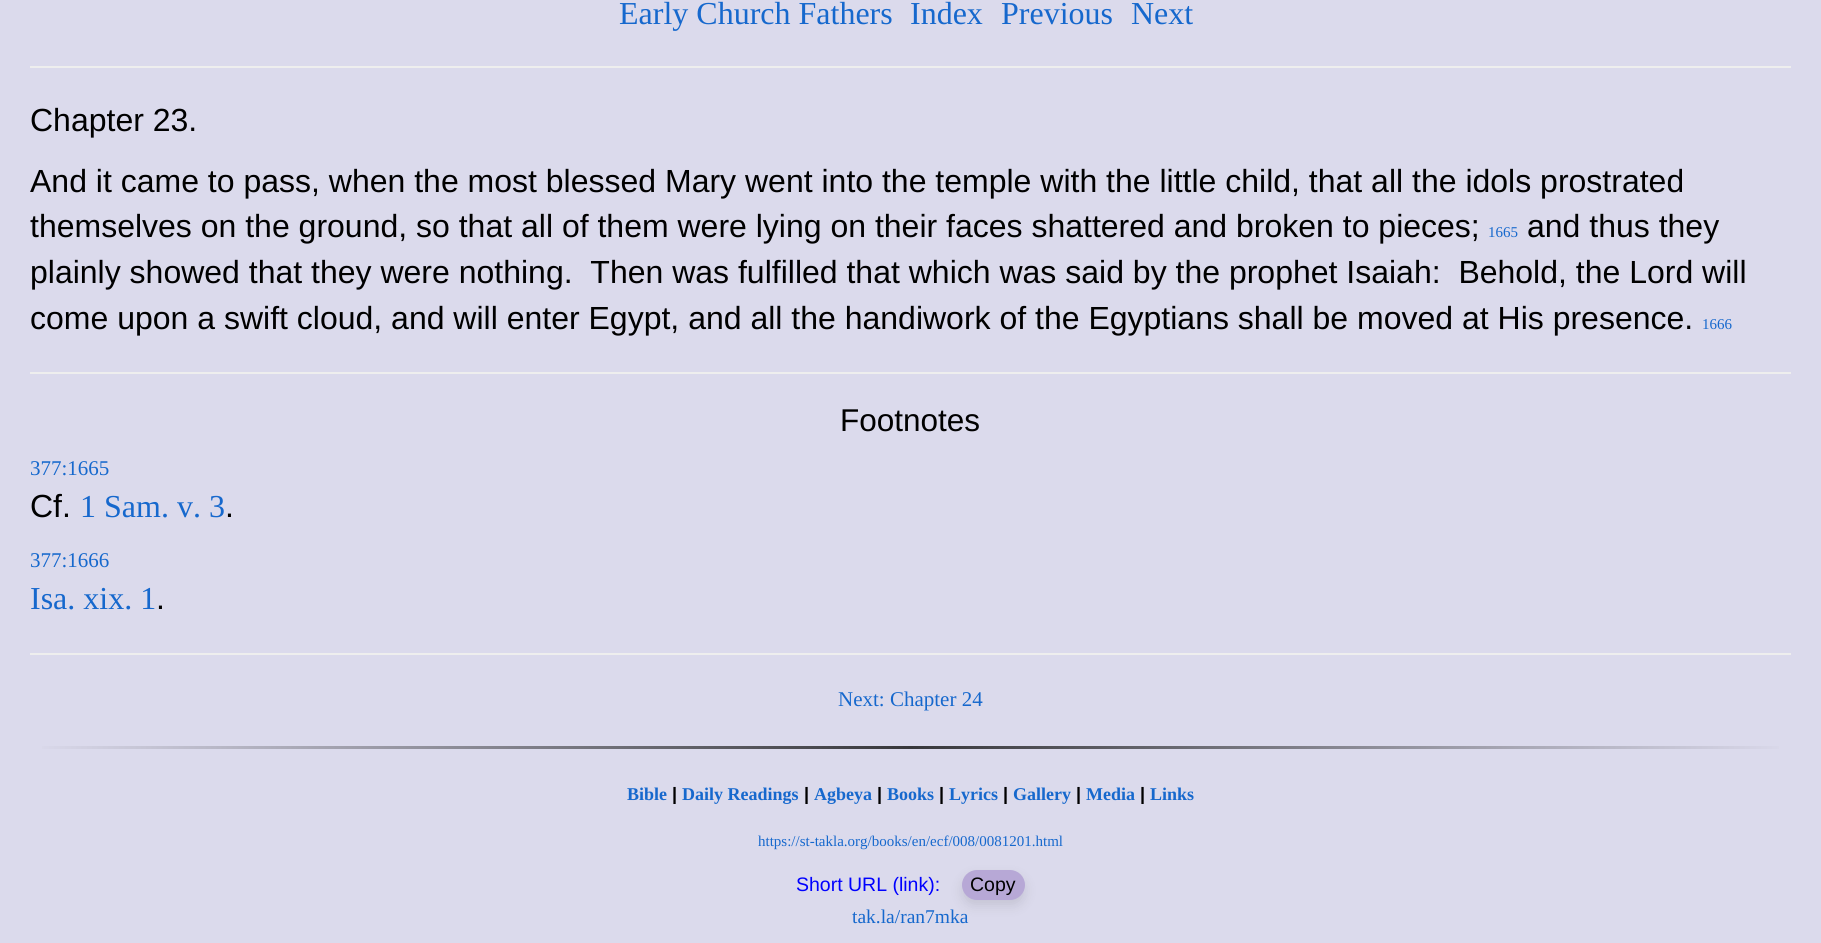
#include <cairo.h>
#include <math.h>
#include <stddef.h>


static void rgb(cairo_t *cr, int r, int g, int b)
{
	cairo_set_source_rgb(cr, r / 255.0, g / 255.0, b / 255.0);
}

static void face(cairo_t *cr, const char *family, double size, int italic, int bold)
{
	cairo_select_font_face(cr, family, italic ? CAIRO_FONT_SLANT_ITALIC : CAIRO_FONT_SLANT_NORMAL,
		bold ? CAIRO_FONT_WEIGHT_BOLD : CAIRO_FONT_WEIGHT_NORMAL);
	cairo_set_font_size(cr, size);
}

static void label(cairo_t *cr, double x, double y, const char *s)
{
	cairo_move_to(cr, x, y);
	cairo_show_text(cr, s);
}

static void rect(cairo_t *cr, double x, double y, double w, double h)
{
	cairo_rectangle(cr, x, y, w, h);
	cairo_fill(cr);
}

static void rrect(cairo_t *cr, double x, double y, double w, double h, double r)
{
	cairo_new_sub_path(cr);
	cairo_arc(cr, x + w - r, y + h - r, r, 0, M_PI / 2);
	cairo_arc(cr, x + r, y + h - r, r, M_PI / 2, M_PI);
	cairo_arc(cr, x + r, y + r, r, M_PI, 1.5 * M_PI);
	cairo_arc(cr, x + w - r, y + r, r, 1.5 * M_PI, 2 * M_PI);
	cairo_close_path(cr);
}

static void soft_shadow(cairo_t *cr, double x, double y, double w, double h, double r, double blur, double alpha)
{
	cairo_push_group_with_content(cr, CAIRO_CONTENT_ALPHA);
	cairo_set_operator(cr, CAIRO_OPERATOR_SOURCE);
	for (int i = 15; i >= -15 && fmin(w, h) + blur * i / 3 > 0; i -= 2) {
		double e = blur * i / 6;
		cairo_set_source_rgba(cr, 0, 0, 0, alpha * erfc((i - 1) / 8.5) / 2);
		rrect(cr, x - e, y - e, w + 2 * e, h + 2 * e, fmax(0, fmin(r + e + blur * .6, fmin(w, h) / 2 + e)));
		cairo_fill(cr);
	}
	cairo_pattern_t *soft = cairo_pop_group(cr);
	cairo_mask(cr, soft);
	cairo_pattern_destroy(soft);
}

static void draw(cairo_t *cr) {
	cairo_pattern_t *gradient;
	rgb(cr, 219, 218, 236);
	cairo_paint(cr);
	face(cr, "Liberation Serif", 32, 0, 0);
	rgb(cr, 22, 104, 205);
	label(cr, 619, 24, "Early Church Fathers");
	label(cr, 910, 24, "Index");
	label(cr, 1001, 24, "Previous");
	label(cr, 1131, 24, "Next");
	rgb(cr, 238, 238, 238);
	rect(cr, 30, 66, 1761, 2);
	face(cr, "Liberation Sans", 32, 0, 0);
	rgb(cr, 0, 0, 0);
	label(cr, 30, 131, "Chapter 23.");
	label(cr, 30, 192, "And it came to pass, when the most blessed Mary went into the temple with the little child, that all the idols prostrated");
	label(cr, 30, 237, "themselves on the ground, so that all of them were lying on their faces shattered and broken to pieces;");
	face(cr, "Liberation Serif", 15, 0, 0);
	rgb(cr, 22, 104, 205);
	label(cr, 1488, 237, "1665");
	face(cr, "Liberation Sans", 32, 0, 0);
	rgb(cr, 0, 0, 0);
	label(cr, 1527, 237, "and thus they");
	label(cr, 30, 283, "plainly showed that they were nothing.  Then was fulfilled that which was said by the prophet Isaiah:  Behold, the Lord will");
	label(cr, 30, 329, "come upon a swift cloud, and will enter Egypt, and all the handiwork of the Egyptians shall be moved at His presence.");
	face(cr, "Liberation Serif", 15, 0, 0);
	rgb(cr, 22, 104, 205);
	label(cr, 1702, 329, "1666");
	rgb(cr, 238, 238, 238);
	rect(cr, 30, 372, 1761, 2);
	face(cr, "Liberation Sans", 31.5, 0, 0);
	rgb(cr, 0, 0, 0);
	label(cr, 840, 431, "Footnotes");
	face(cr, "Liberation Serif", 21, 0, 0);
	rgb(cr, 22, 104, 205);
	label(cr, 30, 475, "377:1665");
	face(cr, "Liberation Sans", 32, 0, 0);
	rgb(cr, 0, 0, 0);
	label(cr, 30, 517, "Cf.");
	face(cr, "Liberation Serif", 32, 0, 0);
	rgb(cr, 22, 104, 205);
	label(cr, 80, 517, "1 Sam. v. 3");
	face(cr, "Liberation Sans", 32, 0, 0);
	rgb(cr, 0, 0, 0);
	label(cr, 225, 517, ".");
	face(cr, "Liberation Serif", 21, 0, 0);
	rgb(cr, 22, 104, 205);
	label(cr, 30, 567, "377:1666");
	face(cr, "Liberation Serif", 32, 0, 0);
	label(cr, 30, 609, "Isa. xix. 1");
	face(cr, "Liberation Sans", 32, 0, 0);
	rgb(cr, 0, 0, 0);
	label(cr, 156, 609, ".");
	rgb(cr, 238, 238, 238);
	rect(cr, 30, 653, 1761, 2);
	face(cr, "Liberation Serif", 21, 0, 0);
	rgb(cr, 22, 104, 205);
	label(cr, 838, 706, "Next: Chapter 24");
	gradient = cairo_pattern_create_linear(30, 747, 1791, 747);
	cairo_pattern_add_color_stop_rgba(gradient, 0, 0.859, 0.855, 0.925, 1);
	cairo_pattern_add_color_stop_rgba(gradient, 0.5, 0.216, 0.216, 0.231, 1);
	cairo_pattern_add_color_stop_rgba(gradient, 1, 0.859, 0.855, 0.925, 1);
	cairo_set_source(cr, gradient);
	cairo_pattern_destroy(gradient);
	rect(cr, 42, 746, 1737, 3);
	face(cr, "Liberation Serif", 18, 0, 1);
	rgb(cr, 22, 104, 205);
	label(cr, 627, 800, "Bible");
	face(cr, "Liberation Sans", 18, 0, 1);
	rgb(cr, 0, 0, 0);
	label(cr, 672, 800, "|");
	face(cr, "Liberation Serif", 18, 0, 1);
	rgb(cr, 22, 104, 205);
	label(cr, 682, 800, "Daily Readings");
	face(cr, "Liberation Sans", 18, 0, 1);
	rgb(cr, 0, 0, 0);
	label(cr, 804, 800, "|");
	face(cr, "Liberation Serif", 18, 0, 1);
	rgb(cr, 22, 104, 205);
	label(cr, 814, 800, "Agbeya");
	face(cr, "Liberation Sans", 18, 0, 1);
	rgb(cr, 0, 0, 0);
	label(cr, 877, 800, "|");
	face(cr, "Liberation Serif", 18, 0, 1);
	rgb(cr, 22, 104, 205);
	label(cr, 887, 800, "Books");
	face(cr, "Liberation Sans", 18, 0, 1);
	rgb(cr, 0, 0, 0);
	label(cr, 939, 800, "|");
	face(cr, "Liberation Serif", 18, 0, 1);
	rgb(cr, 22, 104, 205);
	label(cr, 949, 800, "Lyrics");
	face(cr, "Liberation Sans", 18, 0, 1);
	rgb(cr, 0, 0, 0);
	label(cr, 1003, 800, "|");
	face(cr, "Liberation Serif", 18, 0, 1);
	rgb(cr, 22, 104, 205);
	label(cr, 1013, 800, "Gallery");
	face(cr, "Liberation Sans", 18, 0, 1);
	rgb(cr, 0, 0, 0);
	label(cr, 1076, 800, "|");
	face(cr, "Liberation Serif", 18, 0, 1);
	rgb(cr, 22, 104, 205);
	label(cr, 1086, 800, "Media");
	face(cr, "Liberation Sans", 18, 0, 1);
	rgb(cr, 0, 0, 0);
	label(cr, 1140, 800, "|");
	face(cr, "Liberation Serif", 18, 0, 1);
	rgb(cr, 22, 104, 205);
	label(cr, 1150, 800, "Links");
	face(cr, "Liberation Serif", 15, 0, 0);
	label(cr, 758, 846, "https://st-takla.org/books/en/ecf/008/0081201.html");
	face(cr, "Liberation Sans", 19.5, 0, 0);
	rgb(cr, 0, 0, 255);
	label(cr, 796, 891, "Short URL (link):");
	rgb(cr, 0, 0, 0);
	soft_shadow(cr, 962, 876, 63, 30, 15, 6, 0.1);
	rgb(cr, 183, 168, 214);
	rrect(cr, 962, 870, 63, 30, 15);
	cairo_fill(cr);
	rgb(cr, 0, 0, 0);
	label(cr, 970, 891, "Copy");
	face(cr, "Liberation Serif", 19.5, 0, 0);
	rgb(cr, 22, 104, 205);
	label(cr, 852, 923, "tak.la/ran7mka");
}

int main(void) {
	cairo_surface_t *surface = cairo_image_surface_create(CAIRO_FORMAT_RGB24, 1821, 943);
	cairo_t *cr = cairo_create(surface);
	cairo_font_options_t *options = cairo_font_options_create();
	cairo_font_options_set_hint_metrics(options, CAIRO_HINT_METRICS_OFF);
	cairo_font_options_set_hint_style(options, CAIRO_HINT_STYLE_NONE);
	cairo_set_font_options(cr, options);
	cairo_set_miter_limit(cr, 4);
	draw(cr);
	cairo_surface_write_to_png(surface, "render.png");
	cairo_font_options_destroy(options);
	cairo_destroy(cr);
	cairo_surface_destroy(surface);
	return 0;
}
